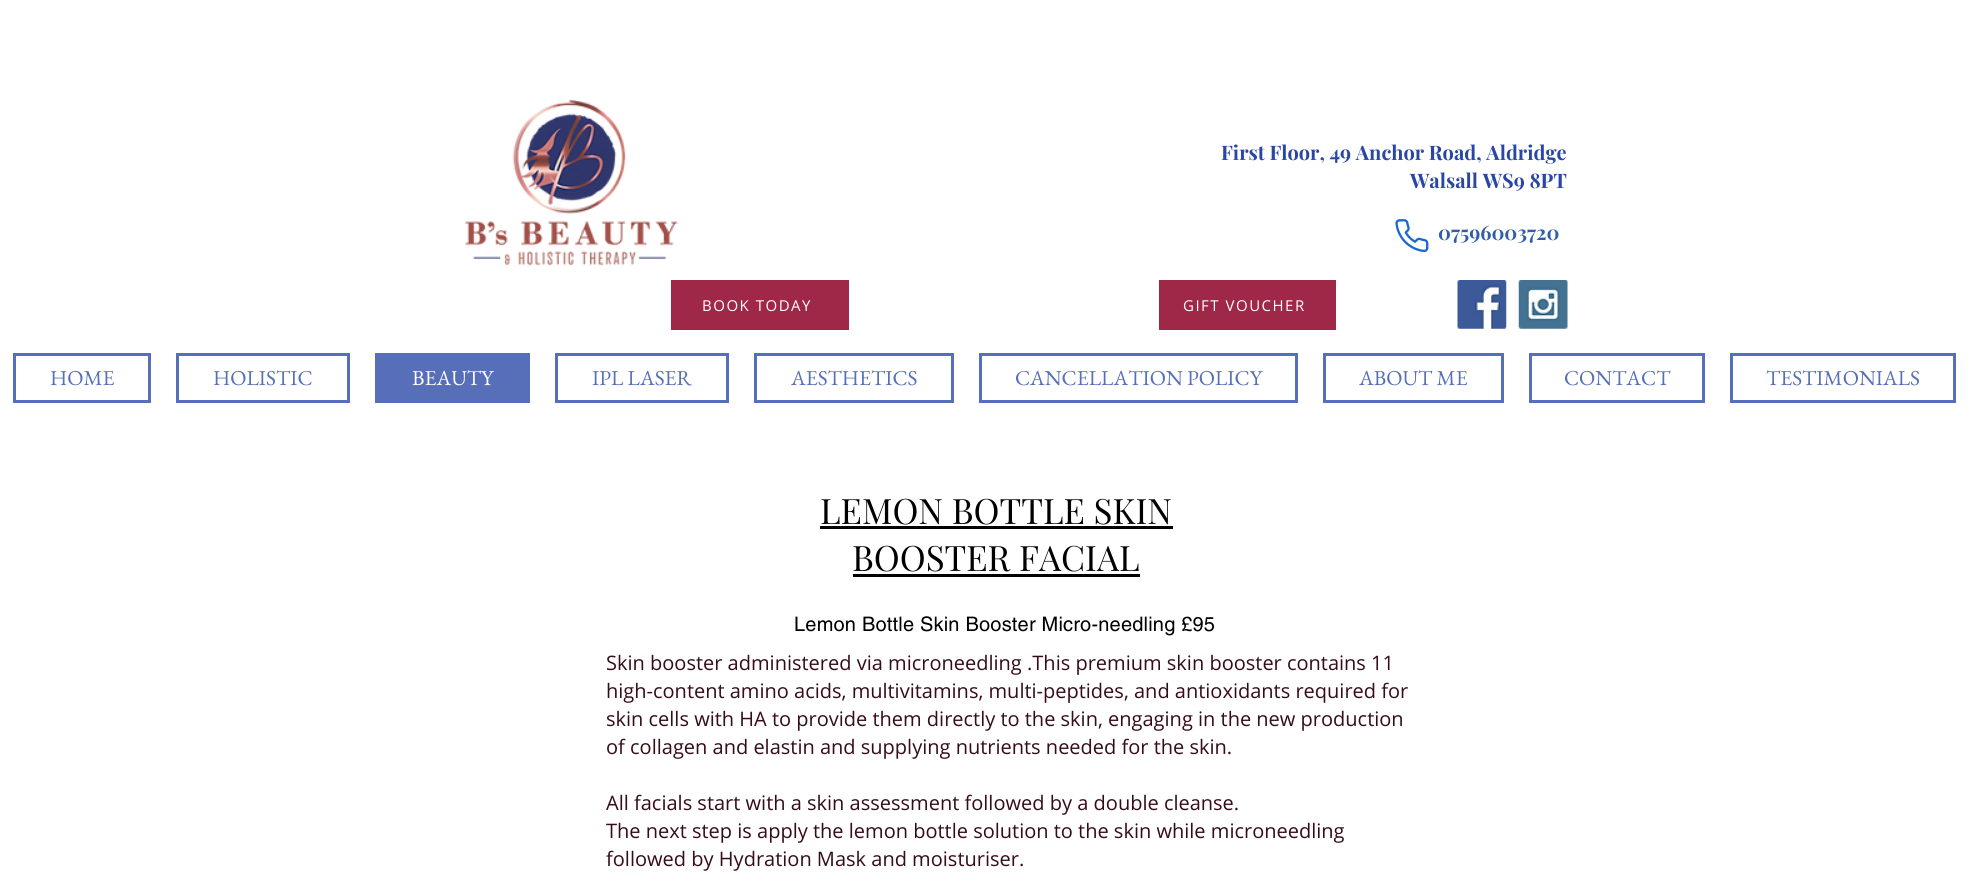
#include <cairo.h>
#include <math.h>
#include <stddef.h>


static void rgb(cairo_t *cr, int r, int g, int b)
{
	cairo_set_source_rgb(cr, r / 255.0, g / 255.0, b / 255.0);
}

static void face(cairo_t *cr, const char *family, double size, int italic, int bold)
{
	cairo_select_font_face(cr, family, italic ? CAIRO_FONT_SLANT_ITALIC : CAIRO_FONT_SLANT_NORMAL,
		bold ? CAIRO_FONT_WEIGHT_BOLD : CAIRO_FONT_WEIGHT_NORMAL);
	cairo_set_font_size(cr, size);
}

static void label(cairo_t *cr, double x, double y, const char *s)
{
	cairo_move_to(cr, x, y);
	cairo_show_text(cr, s);
}

static void tracked(cairo_t *cr, double x, double y, const char *s, double letter, double word)
{
	cairo_move_to(cr, x, y);
	while (*s) {
		char ch[5] = {0};
		int n = 0;
		do ch[n++] = *s++; while ((*s & 0xC0) == 0x80);
		cairo_show_text(cr, ch);
		cairo_rel_move_to(cr, letter + word * (*ch == ' '), 0);
	}
}

static void rect(cairo_t *cr, double x, double y, double w, double h)
{
	cairo_rectangle(cr, x, y, w, h);
	cairo_fill(cr);
}

static void image(cairo_t *cr, const char *path, double x, double y, double w, double h)
{
	cairo_surface_t *image = cairo_image_surface_create_from_png(path);
	cairo_save(cr);
	cairo_set_source_surface(cr, image, x, y);
	cairo_rectangle(cr, x, y, w, h);
	cairo_fill(cr);
	cairo_restore(cr);
	cairo_surface_destroy(image);
}

static void draw(cairo_t *cr) {
	rgb(cr, 255, 255, 255);
	cairo_paint(cr);
	image(cr, "image0.png", 465, 99, 213, 167);
	face(cr, "Playfair Display", 20, 0, 1);
	rgb(cr, 41, 70, 166);
	label(cr, 1221, 160, "First Floor, 49 Anchor Road, Aldridge");
	label(cr, 1410, 188, "Walsall WS9 8PT");
	image(cr, "image1.png", 1395, 219, 34, 34);
	face(cr, "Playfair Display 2", 20, 0, 1);
	rgb(cr, 49, 93, 171);
	label(cr, 1438, 240, "07596003720");
	rgb(cr, 159, 39, 71);
	rect(cr, 671, 280, 178, 50);
	face(cr, "Open Sans", 15, 0, 0);
	rgb(cr, 255, 255, 255);
	tracked(cr, 702, 311, "BOOK TODAY", 1.5, 0);
	rgb(cr, 159, 39, 71);
	rect(cr, 1159, 280, 177, 50);
	rgb(cr, 255, 255, 255);
	tracked(cr, 1183, 311, "GIFT VOUCHER", 1.5, 0);
	image(cr, "image2.png", 1457, 280, 50, 49);
	image(cr, "image3.png", 1518, 280, 50, 49);
	cairo_rectangle(cr, 14.5, 354.5, 135, 47);
	rgb(cr, 86, 111, 184);
	cairo_set_line_width(cr, 3);
	cairo_stroke(cr);
	face(cr, "EB Garamond", 21.25, 0, 0);
	label(cr, 50, 385, "HOME");
	cairo_rectangle(cr, 177.5, 354.5, 171, 47);
	cairo_stroke(cr);
	label(cr, 213, 385, "HOLISTIC");
	rect(cr, 375, 353, 155, 50);
	rgb(cr, 255, 255, 255);
	label(cr, 412, 385, "BEAUTY");
	cairo_rectangle(cr, 556.5, 354.5, 171, 47);
	rgb(cr, 86, 111, 184);
	cairo_stroke(cr);
	label(cr, 592, 385, "IPL LASER");
	cairo_rectangle(cr, 755.5, 354.5, 197, 47);
	cairo_stroke(cr);
	label(cr, 791, 385, "AESTHETICS");
	cairo_rectangle(cr, 980.5, 354.5, 316, 47);
	cairo_stroke(cr);
	label(cr, 1015, 385, "CANCELLATION POLICY");
	cairo_rectangle(cr, 1324.5, 354.5, 178, 47);
	cairo_stroke(cr);
	label(cr, 1359, 385, "ABOUT ME");
	cairo_rectangle(cr, 1530.5, 354.5, 173, 47);
	cairo_stroke(cr);
	label(cr, 1564, 385, "CONTACT");
	cairo_rectangle(cr, 1731.5, 354.5, 223, 47);
	cairo_stroke(cr);
	label(cr, 1766, 385, "TESTIMONIALS");
	face(cr, "Playfair Display", 35, 0, 0);
	rgb(cr, 0, 0, 0);
	label(cr, 820, 524, "LEMON BOTTLE SKIN");
	rect(cr, 820, 526, 353, 3);
	label(cr, 852, 571, "BOOSTER FACIAL");
	rect(cr, 853, 574, 287, 3);
	face(cr, "helvetica", 20, 0, 0);
	tracked(cr, 794, 631, "Lemon Bottle Skin Booster Micro-needling £95", 0.2, 0);
	face(cr, "Open Sans", 20, 0, 0);
	rgb(cr, 53, 13, 24);
	label(cr, 606, 670, "Skin booster administered via microneedling .This premium skin booster contains 11");
	label(cr, 606, 698, "high-content amino acids, multivitamins, multi-peptides, and antioxidants required for");
	label(cr, 606, 726, "skin cells with HA to provide them directly to the skin, engaging in the new production");
	label(cr, 606, 754, "of collagen and elastin and supplying nutrients needed for the skin.");
	label(cr, 606, 810, "All facials start with a skin assessment followed by a double cleanse.");
	label(cr, 606, 838, "The next step is apply the lemon bottle solution to the skin while microneedling");
	label(cr, 606, 866, "followed by Hydration Mask and moisturiser.");
}

int main(void) {
	cairo_surface_t *surface = cairo_image_surface_create(CAIRO_FORMAT_RGB24, 1968, 881);
	cairo_t *cr = cairo_create(surface);
	cairo_font_options_t *options = cairo_font_options_create();
	cairo_font_options_set_hint_metrics(options, CAIRO_HINT_METRICS_OFF);
	cairo_font_options_set_hint_style(options, CAIRO_HINT_STYLE_NONE);
	cairo_set_font_options(cr, options);
	cairo_set_miter_limit(cr, 4);
	draw(cr);
	cairo_surface_write_to_png(surface, "render.png");
	cairo_font_options_destroy(options);
	cairo_destroy(cr);
	cairo_surface_destroy(surface);
	return 0;
}
